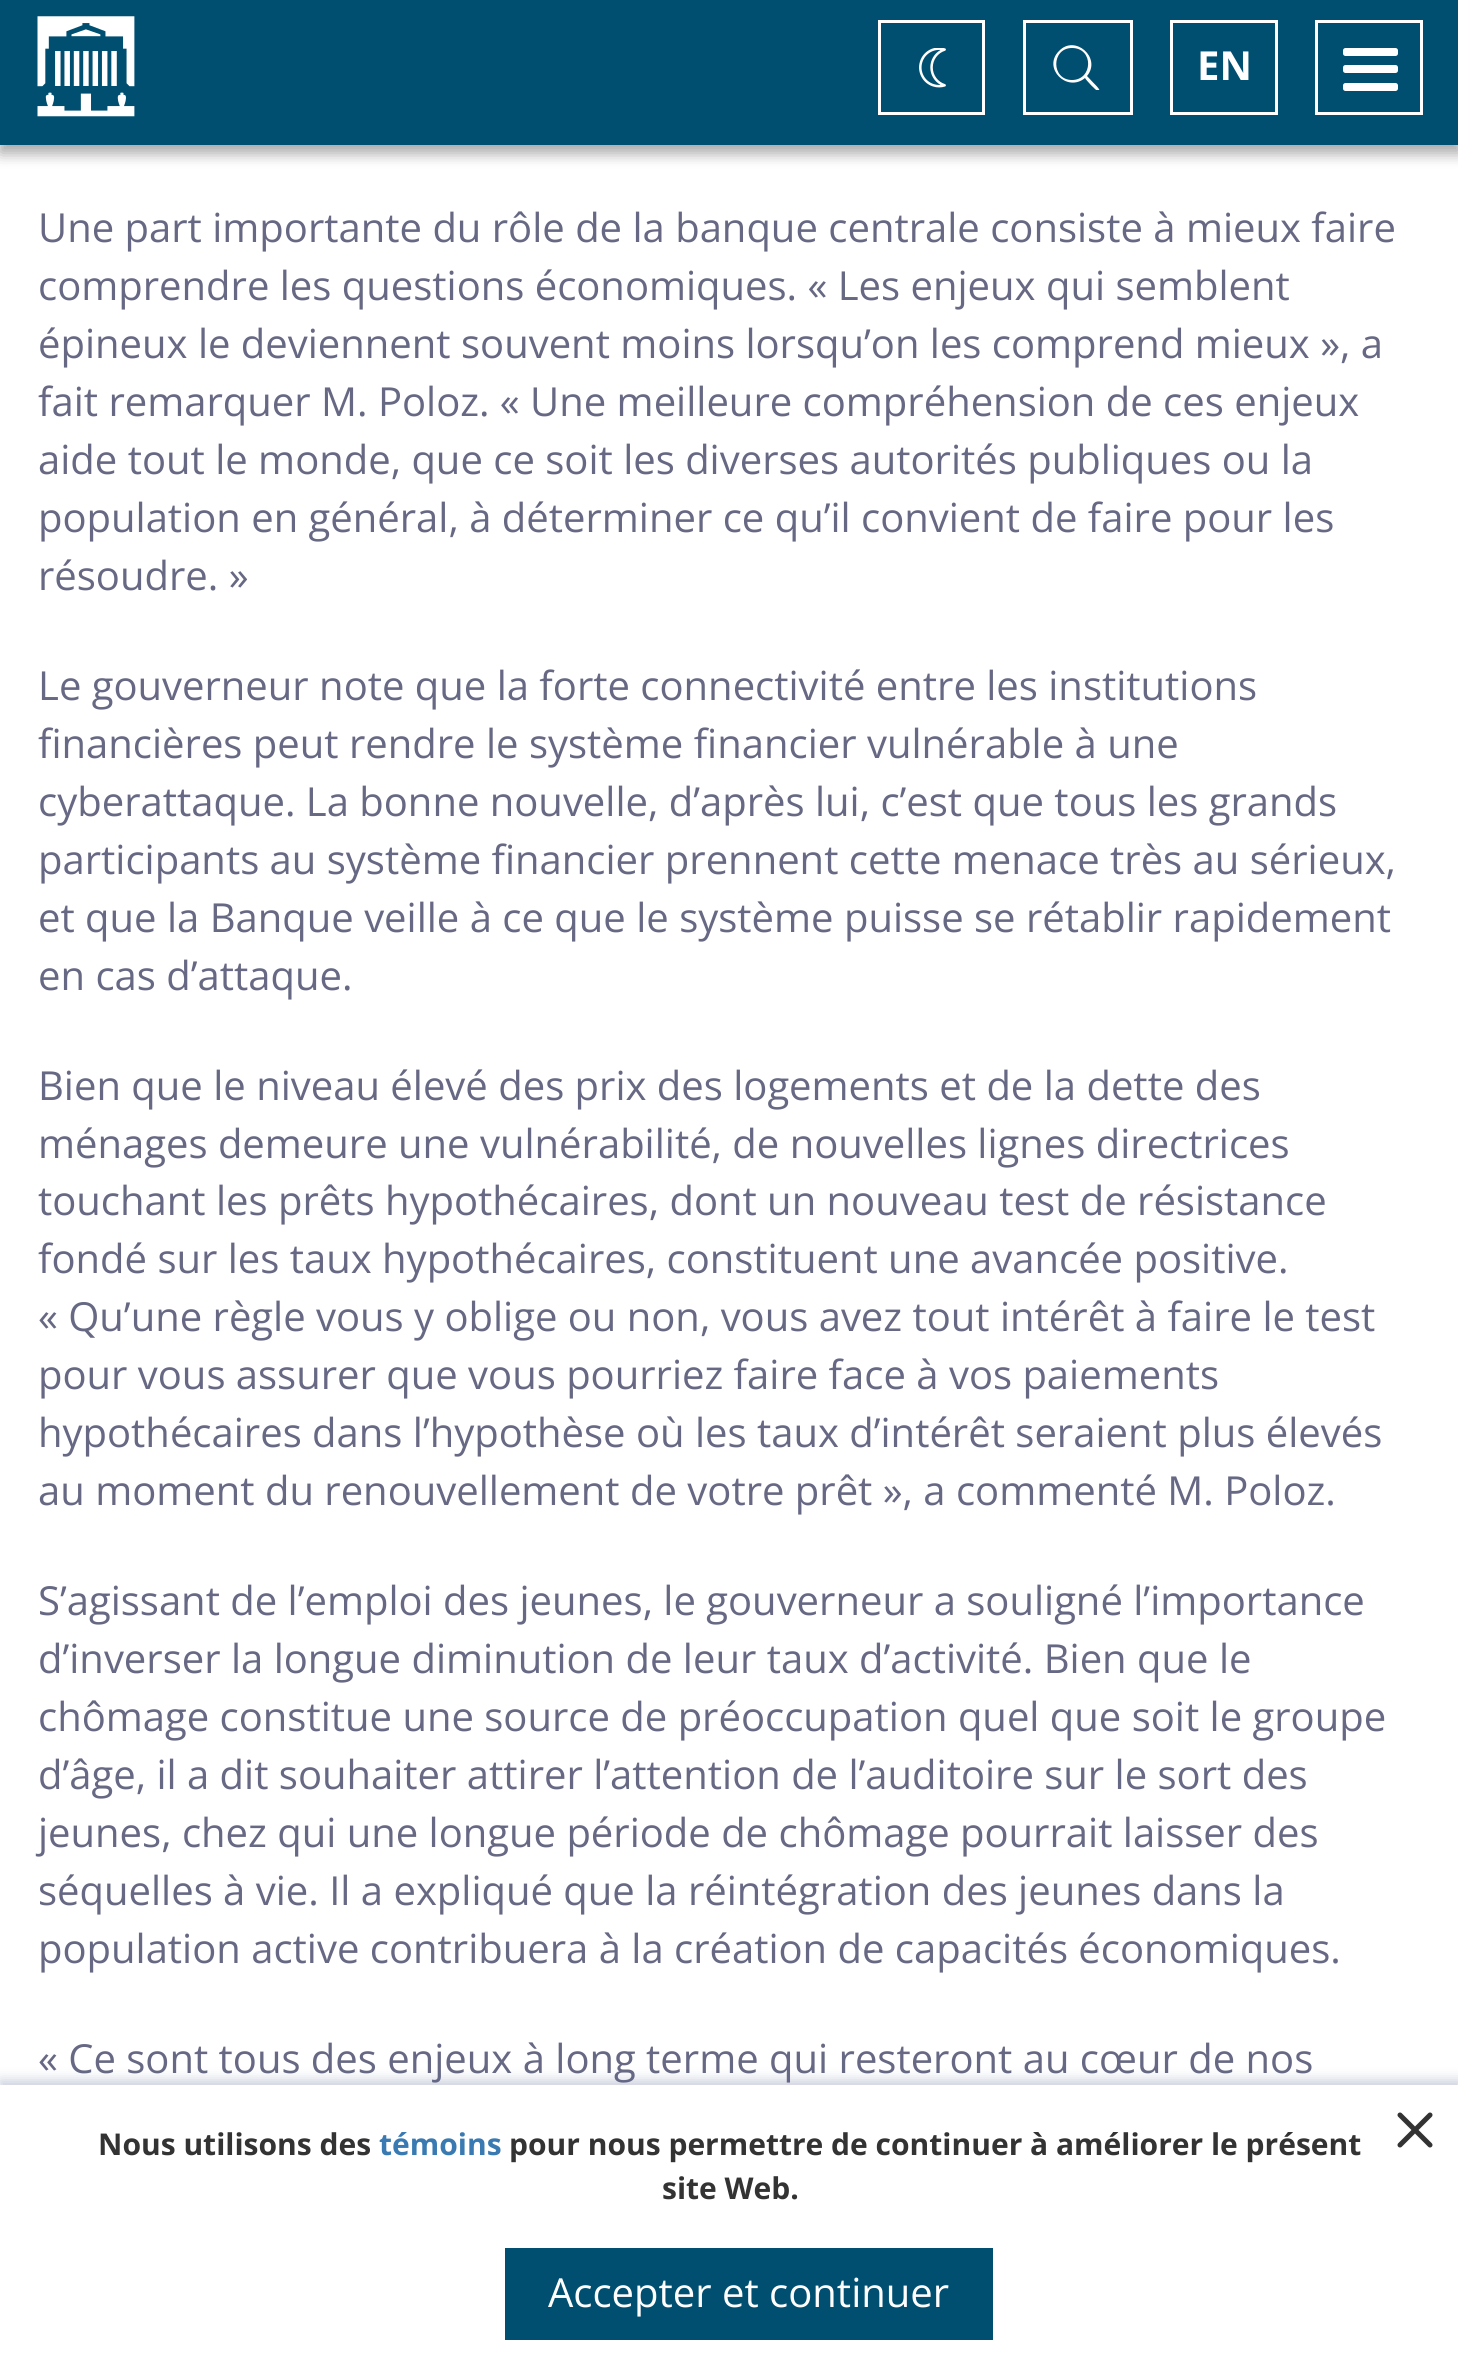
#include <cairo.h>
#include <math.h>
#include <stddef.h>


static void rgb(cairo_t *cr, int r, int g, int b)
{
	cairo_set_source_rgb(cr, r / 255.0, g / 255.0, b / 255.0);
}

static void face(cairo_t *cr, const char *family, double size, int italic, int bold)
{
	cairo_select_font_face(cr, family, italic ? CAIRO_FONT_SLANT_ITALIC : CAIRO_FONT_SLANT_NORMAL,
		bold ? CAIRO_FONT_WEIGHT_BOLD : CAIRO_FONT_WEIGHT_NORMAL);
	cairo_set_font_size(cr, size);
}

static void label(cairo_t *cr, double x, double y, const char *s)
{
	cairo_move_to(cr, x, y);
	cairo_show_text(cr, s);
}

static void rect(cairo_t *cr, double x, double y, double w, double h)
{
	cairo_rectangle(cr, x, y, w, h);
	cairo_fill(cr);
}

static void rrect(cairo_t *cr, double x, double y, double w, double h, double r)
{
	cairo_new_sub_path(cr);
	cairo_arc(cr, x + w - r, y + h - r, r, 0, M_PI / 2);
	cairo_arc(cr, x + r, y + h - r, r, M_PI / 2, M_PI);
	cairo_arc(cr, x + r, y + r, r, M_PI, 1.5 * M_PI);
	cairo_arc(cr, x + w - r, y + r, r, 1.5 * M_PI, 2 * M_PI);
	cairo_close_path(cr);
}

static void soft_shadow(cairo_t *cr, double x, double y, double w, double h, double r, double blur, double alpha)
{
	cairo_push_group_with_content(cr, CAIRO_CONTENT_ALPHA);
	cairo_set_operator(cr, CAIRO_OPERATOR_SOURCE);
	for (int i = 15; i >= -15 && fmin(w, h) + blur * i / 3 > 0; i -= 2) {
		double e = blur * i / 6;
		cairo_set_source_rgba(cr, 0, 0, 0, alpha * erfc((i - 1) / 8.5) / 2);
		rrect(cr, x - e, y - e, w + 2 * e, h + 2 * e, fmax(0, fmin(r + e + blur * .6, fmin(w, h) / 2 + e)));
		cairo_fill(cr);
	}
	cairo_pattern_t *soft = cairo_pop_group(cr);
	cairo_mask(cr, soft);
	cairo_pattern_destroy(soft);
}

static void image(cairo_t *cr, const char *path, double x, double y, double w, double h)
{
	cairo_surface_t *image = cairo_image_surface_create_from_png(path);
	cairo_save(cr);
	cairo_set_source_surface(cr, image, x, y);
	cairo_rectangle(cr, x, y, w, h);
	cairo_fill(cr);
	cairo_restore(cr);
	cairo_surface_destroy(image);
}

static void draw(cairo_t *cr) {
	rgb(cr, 255, 255, 255);
	cairo_paint(cr);
	rgb(cr, 0, 0, 0);
	soft_shadow(cr, 0, 8, 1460, 145, 0, 7.5, 0.23);
	soft_shadow(cr, 0, 8, 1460, 145, 0, 7.5, 0.16);
	rgb(cr, 0, 79, 113);
	rect(cr, 0, 0, 1458, 145);
	image(cr, "image0.png", 37, 16, 98, 101);
	cairo_rectangle(cr, 879.5, 21.5, 104, 92);
	rgb(cr, 255, 255, 255);
	cairo_set_line_width(cr, 3);
	cairo_stroke(cr);
	image(cr, "image1.png", 919, 48, 27, 40);
	cairo_rectangle(cr, 1024.5, 21.5, 107, 92);
	cairo_stroke(cr);
	cairo_save(cr);
	cairo_rectangle(cr, 1050, 45, 55, 45);
	cairo_clip(cr);
	cairo_new_path(cr);
	cairo_move_to(cr, 1098, 91);
	cairo_curve_to(cr, 1096, 91, 1086, 80, 1085, 78);
	cairo_curve_to(cr, 1067, 93, 1042, 68, 1059, 51);
	cairo_curve_to(cr, 1075, 34, 1102, 58, 1087, 76);
	cairo_curve_to(cr, 1093, 83, 1103, 91, 1098, 91);
	cairo_close_path(cr);
	cairo_move_to(cr, 1072, 48);
	cairo_curve_to(cr, 1051, 48, 1051, 80, 1072, 80);
	cairo_curve_to(cr, 1093, 80, 1094, 48, 1072, 48);
	cairo_close_path(cr);
	cairo_fill(cr);
	cairo_restore(cr);
	cairo_rectangle(cr, 1171.5, 21.5, 105, 92);
	cairo_stroke(cr);
	face(cr, "Open Sans", 40, 0, 1);
	label(cr, 1197, 80, "EN");
	cairo_rectangle(cr, 1316.5, 21.5, 105, 92);
	cairo_stroke(cr);
	rrect(cr, 1343, 48, 55, 8, 2.5);
	cairo_fill(cr);
	rrect(cr, 1343, 65, 55, 8, 2.5);
	cairo_fill(cr);
	rrect(cr, 1343, 83, 55, 8, 2.5);
	cairo_fill(cr);
	face(cr, "Open Sans", 40, 0, 0);
	rgb(cr, 103, 105, 132);
	label(cr, 38, 242, "Une part importante du rôle de la banque centrale consiste à mieux faire");
	label(cr, 38, 300, "comprendre les questions économiques. « Les enjeux qui semblent");
	label(cr, 38, 358, "épineux le deviennent souvent moins lorsqu’on les comprend mieux », a");
	label(cr, 38, 416, "fait remarquer M. Poloz. « Une meilleure compréhension de ces enjeux");
	label(cr, 38, 474, "aide tout le monde, que ce soit les diverses autorités publiques ou la");
	label(cr, 38, 532, "population en général, à déterminer ce qu’il convient de faire pour les");
	label(cr, 38, 590, "résoudre. »");
	label(cr, 38, 700, "Le gouverneur note que la forte connectivité entre les institutions");
	label(cr, 38, 758, "financières peut rendre le système financier vulnérable à une");
	label(cr, 38, 816, "cyberattaque. La bonne nouvelle, d’après lui, c’est que tous les grands");
	label(cr, 38, 874, "participants au système financier prennent cette menace très au sérieux,");
	label(cr, 38, 932, "et que la Banque veille à ce que le système puisse se rétablir rapidement");
	label(cr, 38, 990, "en cas d’attaque.");
	label(cr, 38, 1100, "Bien que le niveau élevé des prix des logements et de la dette des");
	label(cr, 38, 1158, "ménages demeure une vulnérabilité, de nouvelles lignes directrices");
	label(cr, 38, 1215, "touchant les prêts hypothécaires, dont un nouveau test de résistance");
	label(cr, 38, 1273, "fondé sur les taux hypothécaires, constituent une avancée positive.");
	label(cr, 38, 1331, "« Qu’une règle vous y oblige ou non, vous avez tout intérêt à faire le test");
	label(cr, 38, 1389, "pour vous assurer que vous pourriez faire face à vos paiements");
	label(cr, 38, 1447, "hypothécaires dans l’hypothèse où les taux d’intérêt seraient plus élevés");
	label(cr, 38, 1505, "au moment du renouvellement de votre prêt », a commenté M. Poloz.");
	label(cr, 38, 1615, "S’agissant de l’emploi des jeunes, le gouverneur a souligné l’importance");
	label(cr, 38, 1673, "d’inverser la longue diminution de leur taux d’activité. Bien que le");
	label(cr, 38, 1731, "chômage constitue une source de préoccupation quel que soit le groupe");
	label(cr, 38, 1789, "d’âge, il a dit souhaiter attirer l’attention de l’auditoire sur le sort des");
	label(cr, 38, 1847, "jeunes, chez qui une longue période de chômage pourrait laisser des");
	label(cr, 38, 1905, "séquelles à vie. Il a expliqué que la réintégration des jeunes dans la");
	label(cr, 38, 1963, "population active contribuera à la création de capacités économiques.");
	label(cr, 38, 2073, "« Ce sont tous des enjeux à long terme qui resteront au cœur de nos");
	rgb(cr, 79, 96, 144);
	soft_shadow(cr, 0, 2080, 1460, 293, 0, 6, 0.3);
	rgb(cr, 255, 255, 255);
	rect(cr, 0, 2085, 1458, 291);
	face(cr, "Open Sans", 30, 0, 1);
	rgb(cr, 51, 51, 51);
	label(cr, 98, 2155, "Nous utilisons des");
	rgb(cr, 57, 122, 178);
	label(cr, 379, 2155, "témoins");
	rgb(cr, 51, 51, 51);
	label(cr, 509, 2155, "pour nous permettre de continuer à améliorer le présent");
	label(cr, 662, 2199, "site Web.");
	cairo_new_path(cr);
	cairo_move_to(cr, 1430, 2115);
	cairo_line_to(cr, 1400, 2145);
	cairo_move_to(cr, 1400, 2115);
	cairo_line_to(cr, 1430, 2145);
	cairo_set_line_width(cr, 5);
	cairo_set_line_cap(cr, CAIRO_LINE_CAP_ROUND);
	cairo_set_line_join(cr, CAIRO_LINE_JOIN_ROUND);
	cairo_stroke(cr);
	rgb(cr, 0, 79, 113);
	rect(cr, 505, 2248, 488, 92);
	face(cr, "Open Sans", 40, 0, 0);
	rgb(cr, 255, 255, 255);
	label(cr, 548, 2307, "Accepter et continuer");
}

int main(void) {
	cairo_surface_t *surface = cairo_image_surface_create(CAIRO_FORMAT_RGB24, 1458, 2376);
	cairo_t *cr = cairo_create(surface);
	cairo_font_options_t *options = cairo_font_options_create();
	cairo_font_options_set_hint_metrics(options, CAIRO_HINT_METRICS_OFF);
	cairo_font_options_set_hint_style(options, CAIRO_HINT_STYLE_NONE);
	cairo_set_font_options(cr, options);
	cairo_set_miter_limit(cr, 4);
	draw(cr);
	cairo_surface_write_to_png(surface, "render.png");
	cairo_font_options_destroy(options);
	cairo_destroy(cr);
	cairo_surface_destroy(surface);
	return 0;
}
